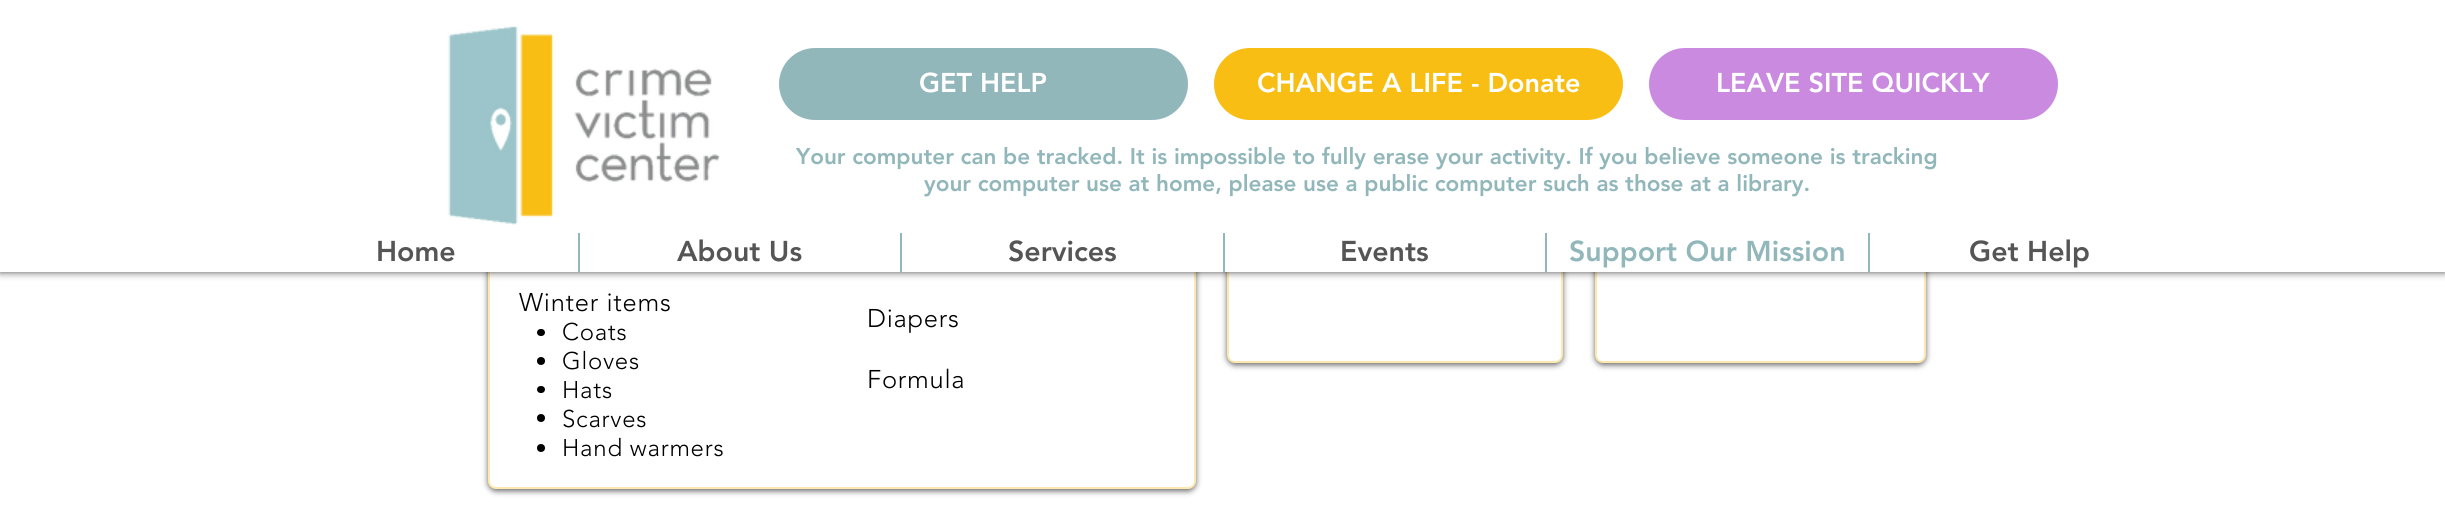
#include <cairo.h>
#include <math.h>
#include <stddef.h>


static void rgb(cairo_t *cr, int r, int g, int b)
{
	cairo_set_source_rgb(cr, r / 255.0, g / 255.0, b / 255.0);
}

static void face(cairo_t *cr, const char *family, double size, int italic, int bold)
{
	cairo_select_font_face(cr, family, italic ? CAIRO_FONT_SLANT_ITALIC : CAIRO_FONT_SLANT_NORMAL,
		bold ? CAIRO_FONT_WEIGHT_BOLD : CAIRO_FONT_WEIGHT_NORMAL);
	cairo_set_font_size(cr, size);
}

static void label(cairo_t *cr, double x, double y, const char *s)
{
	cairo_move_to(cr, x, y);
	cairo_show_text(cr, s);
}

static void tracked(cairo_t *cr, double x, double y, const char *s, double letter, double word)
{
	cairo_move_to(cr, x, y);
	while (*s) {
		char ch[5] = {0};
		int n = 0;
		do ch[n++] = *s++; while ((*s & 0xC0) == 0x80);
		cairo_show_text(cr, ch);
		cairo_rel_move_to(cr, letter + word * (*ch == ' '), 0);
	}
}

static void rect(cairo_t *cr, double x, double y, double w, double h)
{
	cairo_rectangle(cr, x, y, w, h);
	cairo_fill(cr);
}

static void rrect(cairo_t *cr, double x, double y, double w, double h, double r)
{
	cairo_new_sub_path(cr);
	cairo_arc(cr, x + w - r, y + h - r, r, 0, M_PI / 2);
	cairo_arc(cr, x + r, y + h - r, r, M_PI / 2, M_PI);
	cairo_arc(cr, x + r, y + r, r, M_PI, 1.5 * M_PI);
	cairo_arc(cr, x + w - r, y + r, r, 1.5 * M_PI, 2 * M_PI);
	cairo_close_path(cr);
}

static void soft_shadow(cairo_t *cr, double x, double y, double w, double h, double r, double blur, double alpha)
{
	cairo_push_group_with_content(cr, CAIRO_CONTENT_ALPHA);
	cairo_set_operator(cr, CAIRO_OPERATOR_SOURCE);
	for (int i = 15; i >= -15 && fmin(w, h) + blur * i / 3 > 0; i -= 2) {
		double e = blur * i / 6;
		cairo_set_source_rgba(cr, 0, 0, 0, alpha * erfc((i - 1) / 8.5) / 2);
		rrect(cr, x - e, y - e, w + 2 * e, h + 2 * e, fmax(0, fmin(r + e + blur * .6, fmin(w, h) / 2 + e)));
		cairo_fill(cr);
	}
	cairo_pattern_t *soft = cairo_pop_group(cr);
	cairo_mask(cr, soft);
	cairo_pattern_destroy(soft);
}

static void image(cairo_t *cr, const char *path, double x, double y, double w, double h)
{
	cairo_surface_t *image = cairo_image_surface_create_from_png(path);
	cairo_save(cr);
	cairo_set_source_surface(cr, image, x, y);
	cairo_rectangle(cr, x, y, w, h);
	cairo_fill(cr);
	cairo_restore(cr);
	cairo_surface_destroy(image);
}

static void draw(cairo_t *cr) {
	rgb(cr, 255, 255, 255);
	cairo_paint(cr);
	rgb(cr, 0, 0, 0);
	soft_shadow(cr, 488, -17, 708, 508, 8, 3, 0.6);
	rgb(cr, 255, 255, 255);
	rrect(cr, 489, -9, 706, 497, 7);
	cairo_fill_preserve(cr);
	rgb(cr, 253, 233, 175);
	cairo_stroke(cr);
	rgb(cr, 0, 0, 0);
	soft_shadow(cr, 1227, -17, 336, 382, 8, 3, 0.6);
	rgb(cr, 255, 255, 255);
	rrect(cr, 1228, -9, 334, 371, 7);
	cairo_fill_preserve(cr);
	rgb(cr, 253, 233, 175);
	cairo_stroke(cr);
	rgb(cr, 0, 0, 0);
	soft_shadow(cr, 1595, -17, 331, 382, 8, 3, 0.6);
	rgb(cr, 255, 255, 255);
	rrect(cr, 1596, -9, 329, 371, 7);
	cairo_fill_preserve(cr);
	rgb(cr, 253, 233, 175);
	cairo_stroke(cr);
	rgb(cr, 0, 0, 0);
	soft_shadow(cr, 0, 0, 2445, 272, 0, 4, 0.7);
	rgb(cr, 255, 255, 255);
	rect(cr, 0, 0, 2445, 272);
	image(cr, "image0.png", 448, 26, 272, 199);
	rgb(cr, 146, 183, 187);
	rrect(cr, 779, 48, 409, 72, 36);
	cairo_fill(cr);
	face(cr, "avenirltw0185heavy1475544 Black", 27, 0, 0);
	rgb(cr, 255, 255, 255);
	label(cr, 919, 92, "GET HELP");
	rgb(cr, 248, 190, 19);
	rrect(cr, 1214, 48, 409, 72, 36);
	cairo_fill(cr);
	rgb(cr, 255, 255, 255);
	label(cr, 1257, 92, "CHANGE A LIFE - Donate");
	rgb(cr, 202, 138, 224);
	rrect(cr, 1649, 48, 409, 72, 36);
	cairo_fill(cr);
	rgb(cr, 255, 255, 255);
	label(cr, 1716, 92, "LEAVE SITE QUICKLY");
	face(cr, "avenirltw0185heavy1475544 Black", 22.5, 0, 0);
	rgb(cr, 146, 183, 187);
	label(cr, 796, 164, "Your computer can be tracked. It is impossible to fully erase your activity. If you believe someone is tracking");
	label(cr, 924, 191, "your computer use at home, please use a public computer such as those at a library.");
	face(cr, "avenirltw0185heavy1475544 Black", 28.5, 0, 0);
	rgb(cr, 85, 85, 85);
	label(cr, 376, 261, "Home");
	rgb(cr, 146, 183, 187);
	rect(cr, 578, 233, 2, 39);
	rgb(cr, 85, 85, 85);
	label(cr, 677, 261, "About Us");
	rgb(cr, 146, 183, 187);
	rect(cr, 900, 233, 2, 39);
	rgb(cr, 85, 85, 85);
	label(cr, 1008, 261, "Services");
	rgb(cr, 146, 183, 187);
	rect(cr, 1223, 233, 2, 39);
	rgb(cr, 85, 85, 85);
	label(cr, 1340, 261, "Events");
	rgb(cr, 146, 183, 187);
	rect(cr, 1545, 233, 2, 39);
	label(cr, 1569, 261, "Support Our Mission");
	rect(cr, 1868, 233, 2, 39);
	rgb(cr, 85, 85, 85);
	label(cr, 1969, 261, "Get Help");
	face(cr, "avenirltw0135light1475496 Light", 25.5, 0, 0);
	rgb(cr, 0, 0, 0);
	tracked(cr, 519, 311, "Winter items", 0.75, 0);
	rrect(cr, 537, 329, 8, 7, 3.5);
	cairo_fill(cr);
	face(cr, "avenirltw0135light1475496 Light", 24, 0, 0);
	tracked(cr, 562, 340, "Coats", 0.75, 0);
	cairo_new_path(cr);
	cairo_arc(cr, 541, 361, 4, 0, 2 * M_PI);
	cairo_fill(cr);
	tracked(cr, 562, 369, "Gloves", 0.75, 0);
	rrect(cr, 537, 386, 8, 7, 3.5);
	cairo_fill(cr);
	tracked(cr, 562, 398, "Hats", 0.75, 0);
	cairo_new_path(cr);
	cairo_arc(cr, 541, 418, 4, 0, 2 * M_PI);
	cairo_fill(cr);
	tracked(cr, 562, 427, "Scarves", 0.75, 0);
	cairo_new_path(cr);
	cairo_arc(cr, 541, 448, 4, 0, 2 * M_PI);
	cairo_fill(cr);
	tracked(cr, 562, 456, "Hand warmers", 0.75, 0);
	face(cr, "avenirltw0135light1475496 Light", 25.5, 0, 0);
	tracked(cr, 867, 327, "Diapers", 0.75, 0);
	tracked(cr, 867, 388, "Formula", 0.75, 0);
}

int main(void) {
	cairo_surface_t *surface = cairo_image_surface_create(CAIRO_FORMAT_RGB24, 2445, 528);
	cairo_t *cr = cairo_create(surface);
	cairo_font_options_t *options = cairo_font_options_create();
	cairo_font_options_set_hint_metrics(options, CAIRO_HINT_METRICS_OFF);
	cairo_font_options_set_hint_style(options, CAIRO_HINT_STYLE_NONE);
	cairo_set_font_options(cr, options);
	cairo_set_miter_limit(cr, 4);
	draw(cr);
	cairo_surface_write_to_png(surface, "render.png");
	cairo_font_options_destroy(options);
	cairo_destroy(cr);
	cairo_surface_destroy(surface);
	return 0;
}
